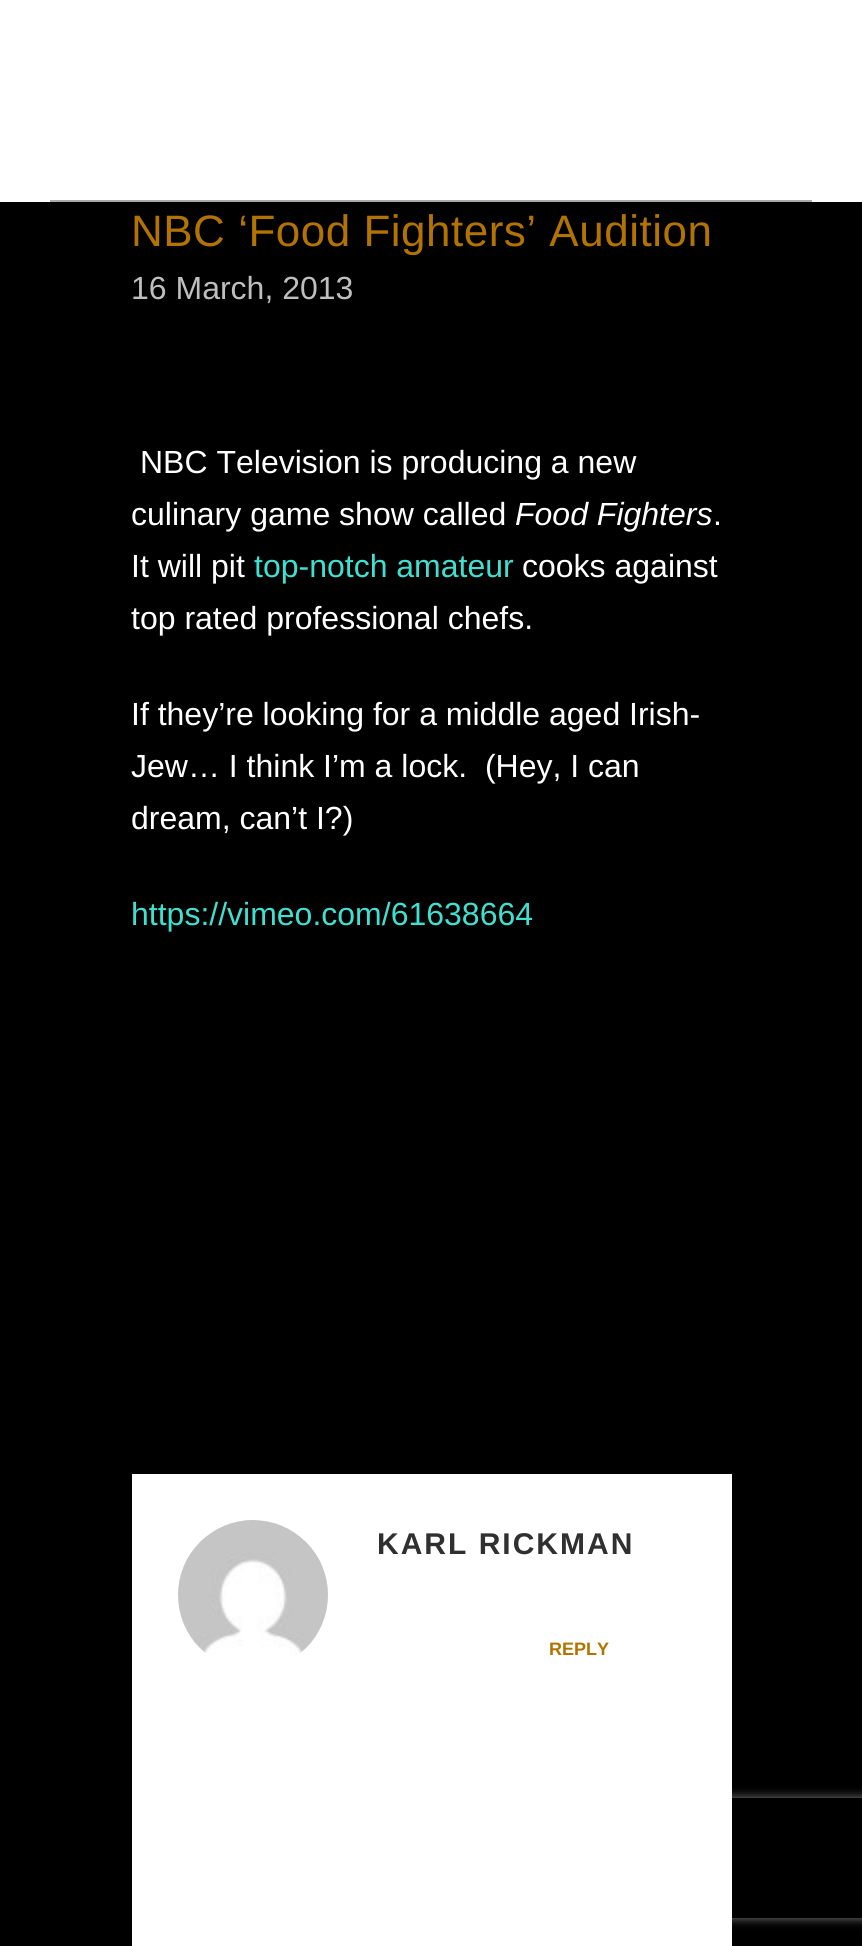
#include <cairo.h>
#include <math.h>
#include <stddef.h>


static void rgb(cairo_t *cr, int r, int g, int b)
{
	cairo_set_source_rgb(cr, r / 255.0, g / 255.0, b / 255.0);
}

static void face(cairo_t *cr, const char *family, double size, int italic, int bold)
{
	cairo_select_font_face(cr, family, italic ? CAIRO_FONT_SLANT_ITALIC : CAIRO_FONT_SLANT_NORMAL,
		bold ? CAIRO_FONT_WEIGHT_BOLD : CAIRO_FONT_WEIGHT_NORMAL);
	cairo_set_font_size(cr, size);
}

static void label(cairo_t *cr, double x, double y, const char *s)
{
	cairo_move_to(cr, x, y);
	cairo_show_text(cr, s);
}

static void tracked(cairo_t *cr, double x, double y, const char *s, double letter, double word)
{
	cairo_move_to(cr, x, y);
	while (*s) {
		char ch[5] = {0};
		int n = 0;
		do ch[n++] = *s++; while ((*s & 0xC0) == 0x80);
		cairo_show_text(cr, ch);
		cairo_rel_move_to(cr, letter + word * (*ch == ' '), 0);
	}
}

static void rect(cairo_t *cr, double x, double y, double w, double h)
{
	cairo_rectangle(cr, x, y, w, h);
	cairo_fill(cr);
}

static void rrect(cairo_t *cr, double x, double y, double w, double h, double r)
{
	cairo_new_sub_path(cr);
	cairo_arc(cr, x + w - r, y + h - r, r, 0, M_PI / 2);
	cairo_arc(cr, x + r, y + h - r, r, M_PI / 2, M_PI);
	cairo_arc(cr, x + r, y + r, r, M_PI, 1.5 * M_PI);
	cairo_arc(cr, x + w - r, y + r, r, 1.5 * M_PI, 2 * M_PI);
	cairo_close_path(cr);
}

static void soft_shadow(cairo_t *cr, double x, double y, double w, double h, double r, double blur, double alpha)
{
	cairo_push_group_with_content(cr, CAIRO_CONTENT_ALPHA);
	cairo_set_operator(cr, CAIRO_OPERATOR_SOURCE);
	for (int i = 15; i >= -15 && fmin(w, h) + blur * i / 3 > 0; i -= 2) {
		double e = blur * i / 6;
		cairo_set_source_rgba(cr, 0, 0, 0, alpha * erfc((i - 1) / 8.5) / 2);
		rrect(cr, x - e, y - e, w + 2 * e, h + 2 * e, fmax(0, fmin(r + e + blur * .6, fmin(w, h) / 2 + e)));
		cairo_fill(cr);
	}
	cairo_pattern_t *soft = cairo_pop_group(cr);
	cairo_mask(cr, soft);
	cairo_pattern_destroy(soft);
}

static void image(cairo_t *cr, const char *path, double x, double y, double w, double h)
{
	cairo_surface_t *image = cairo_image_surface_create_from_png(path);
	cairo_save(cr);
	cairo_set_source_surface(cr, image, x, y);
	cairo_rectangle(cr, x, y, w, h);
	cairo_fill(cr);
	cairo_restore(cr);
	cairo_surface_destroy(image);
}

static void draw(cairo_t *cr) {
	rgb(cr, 0, 0, 0);
	cairo_paint(cr);
	rgb(cr, 255, 255, 255);
	rect(cr, 0, 0, 862, 202);
	rgb(cr, 170, 170, 170);
	rect(cr, 50, 200, 762, 2);
	face(cr, "Liberation Sans", 44, 0, 0);
	rgb(cr, 178, 115, 0);
	tracked(cr, 131, 246, "NBC ‘Food Fighters’ Audition", 0.5, 0);
	face(cr, "Liberation Sans", 32, 0, 0);
	rgb(cr, 190, 190, 190);
	label(cr, 131, 299, "16 March, 2013");
	rgb(cr, 255, 255, 255);
	label(cr, 140, 473, "NBC Television is producing a new");
	label(cr, 131, 525, "culinary game show called");
	face(cr, "Liberation Sans", 32, 1, 0);
	label(cr, 515, 525, "Food Fighters");
	face(cr, "Liberation Sans", 32, 0, 0);
	label(cr, 713, 525, ".");
	label(cr, 131, 577, "It will pit");
	rgb(cr, 64, 224, 208);
	label(cr, 254, 577, "top-notch amateur");
	rgb(cr, 255, 255, 255);
	label(cr, 522, 577, "cooks against");
	label(cr, 131, 629, "top rated professional chefs.");
	label(cr, 131, 725, "If they’re looking for a middle aged Irish-");
	label(cr, 131, 777, "Jew… I think I’m a lock.  (Hey, I can");
	label(cr, 131, 829, "dream, can’t I?)");
	rgb(cr, 64, 224, 208);
	label(cr, 131, 925, "https://vimeo.com/61638664");
	cairo_save(cr);
	cairo_set_fill_rule(cr, CAIRO_FILL_RULE_EVEN_ODD);
	cairo_new_path(cr);
	cairo_move_to(cr, 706, 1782);
	cairo_line_to(cr, 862, 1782);
	cairo_line_to(cr, 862, 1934);
	cairo_line_to(cr, 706, 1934);
	cairo_close_path(cr);
	cairo_move_to(cr, 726, 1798);
	cairo_line_to(cr, 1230, 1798);
	cairo_curve_to(cr, 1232, 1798, 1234, 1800, 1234, 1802);
	cairo_line_to(cr, 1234, 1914);
	cairo_curve_to(cr, 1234, 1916, 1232, 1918, 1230, 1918);
	cairo_line_to(cr, 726, 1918);
	cairo_curve_to(cr, 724, 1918, 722, 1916, 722, 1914);
	cairo_line_to(cr, 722, 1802);
	cairo_curve_to(cr, 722, 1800, 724, 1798, 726, 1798);
	cairo_close_path(cr);
	cairo_clip(cr);
	rgb(cr, 128, 128, 128);
	soft_shadow(cr, 722, 1798, 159, 120, 4, 5, 1);
	cairo_restore(cr);
	rgb(cr, 255, 255, 255);
	rect(cr, 132, 1474, 600, 472);
	image(cr, "image0.png", 178, 1520, 150, 136);
	face(cr, "Liberation Sans", 30, 0, 1);
	rgb(cr, 48, 48, 48);
	tracked(cr, 377, 1554, "KARL RICKMAN", 2, 0);
	face(cr, "Liberation Sans", 18, 0, 1);
	rgb(cr, 178, 115, 0);
	label(cr, 549, 1655, "REPLY");
}

int main(void) {
	cairo_surface_t *surface = cairo_image_surface_create(CAIRO_FORMAT_RGB24, 862, 1946);
	cairo_t *cr = cairo_create(surface);
	cairo_font_options_t *options = cairo_font_options_create();
	cairo_font_options_set_hint_metrics(options, CAIRO_HINT_METRICS_OFF);
	cairo_font_options_set_hint_style(options, CAIRO_HINT_STYLE_NONE);
	cairo_set_font_options(cr, options);
	cairo_set_miter_limit(cr, 4);
	draw(cr);
	cairo_surface_write_to_png(surface, "render.png");
	cairo_font_options_destroy(options);
	cairo_destroy(cr);
	cairo_surface_destroy(surface);
	return 0;
}
